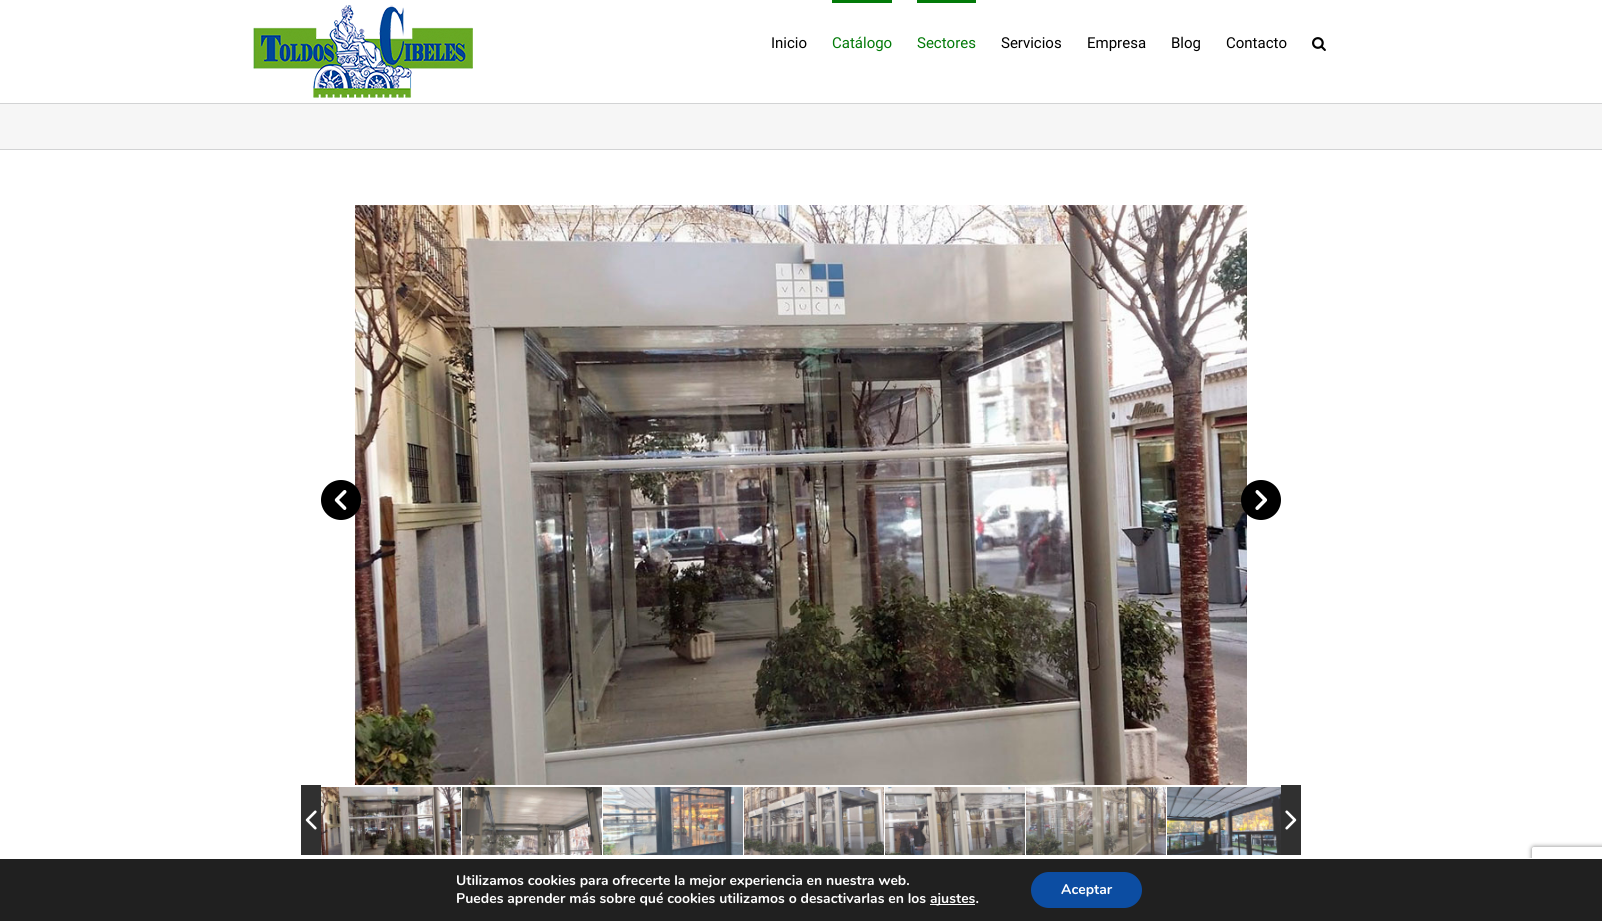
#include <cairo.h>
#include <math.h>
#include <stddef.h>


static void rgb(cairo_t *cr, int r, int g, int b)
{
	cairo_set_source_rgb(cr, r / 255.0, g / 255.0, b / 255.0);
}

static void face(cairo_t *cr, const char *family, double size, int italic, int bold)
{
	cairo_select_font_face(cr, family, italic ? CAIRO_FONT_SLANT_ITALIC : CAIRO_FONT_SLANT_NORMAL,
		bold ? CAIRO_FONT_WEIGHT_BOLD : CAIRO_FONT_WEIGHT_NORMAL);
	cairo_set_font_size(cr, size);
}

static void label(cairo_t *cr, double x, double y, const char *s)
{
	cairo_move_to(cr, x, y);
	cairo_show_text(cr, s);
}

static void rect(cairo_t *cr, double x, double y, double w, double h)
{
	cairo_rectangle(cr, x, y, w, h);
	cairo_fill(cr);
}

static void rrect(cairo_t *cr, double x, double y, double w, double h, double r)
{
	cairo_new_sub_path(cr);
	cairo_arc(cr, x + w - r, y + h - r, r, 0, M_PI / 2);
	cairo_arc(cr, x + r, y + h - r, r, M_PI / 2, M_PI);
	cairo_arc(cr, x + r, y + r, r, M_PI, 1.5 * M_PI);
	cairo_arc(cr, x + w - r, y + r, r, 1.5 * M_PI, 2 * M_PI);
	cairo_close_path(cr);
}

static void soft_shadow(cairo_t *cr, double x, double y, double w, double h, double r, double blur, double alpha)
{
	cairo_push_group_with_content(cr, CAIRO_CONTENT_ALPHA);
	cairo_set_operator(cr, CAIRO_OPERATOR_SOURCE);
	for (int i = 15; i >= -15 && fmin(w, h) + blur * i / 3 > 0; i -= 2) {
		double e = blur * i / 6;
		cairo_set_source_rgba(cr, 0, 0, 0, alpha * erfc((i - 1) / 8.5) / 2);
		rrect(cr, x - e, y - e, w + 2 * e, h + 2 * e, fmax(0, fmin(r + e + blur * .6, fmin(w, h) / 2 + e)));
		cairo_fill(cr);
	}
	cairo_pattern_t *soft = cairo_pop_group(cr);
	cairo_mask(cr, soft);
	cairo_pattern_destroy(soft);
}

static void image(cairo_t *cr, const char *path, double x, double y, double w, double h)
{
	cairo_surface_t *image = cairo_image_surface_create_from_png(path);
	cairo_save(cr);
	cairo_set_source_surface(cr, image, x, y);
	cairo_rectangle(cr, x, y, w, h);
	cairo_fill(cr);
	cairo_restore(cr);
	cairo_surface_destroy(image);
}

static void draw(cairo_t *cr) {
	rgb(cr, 255, 255, 255);
	cairo_paint(cr);
	image(cr, "image0.png", 253, 5, 220, 93);
	face(cr, "Roboto", 15, 0, 0);
	rgb(cr, 0, 0, 0);
	label(cr, 771, 48, "Inicio");
	rgb(cr, 2, 122, 8);
	rect(cr, 832, 0, 60, 3);
	label(cr, 832, 48, "Catálogo");
	rect(cr, 917, 0, 59, 3);
	label(cr, 917, 48, "Sectores");
	rgb(cr, 0, 0, 0);
	label(cr, 1001, 48, "Servicios");
	label(cr, 1087, 48, "Empresa");
	label(cr, 1171, 48, "Blog");
	label(cr, 1226, 48, "Contacto");
	image(cr, "image1.png", 1312, 37, 14, 14);
	rgb(cr, 246, 246, 246);
	rect(cr, 0, 104, 1602, 45);
	rgb(cr, 210, 211, 212);
	rect(cr, 0, 103, 1602, 1);
	rect(cr, 0, 149, 1602, 1);
	image(cr, "image3.png", 355, 205, 892, 580);
	rgb(cr, 0, 0, 0);
	cairo_arc(cr, 341, 500, 20, 0, 2 * M_PI);
	cairo_fill(cr);
	image(cr, "image2.png", 334, 490, 13, 20);
	cairo_arc(cr, 1261, 500, 20, 0, 2 * M_PI);
	cairo_fill(cr);
	image(cr, "image4.png", 1255, 490, 13, 20);
	rgb(cr, 48, 48, 48);
	rect(cr, 301, 785, 20, 70);
	image(cr, "image5.png", 305, 810, 12, 20);
	image(cr, "image6.png", 321, 787, 140, 68);
	image(cr, "image7.png", 462, 787, 140, 68);
	image(cr, "image8.png", 603, 787, 140, 68);
	image(cr, "image9.png", 744, 787, 140, 68);
	image(cr, "image10.png", 885, 787, 140, 68);
	image(cr, "image11.png", 1026, 787, 140, 68);
	image(cr, "image12.png", 1167, 787, 114, 68);
	rect(cr, 1281, 785, 20, 70);
	image(cr, "image13.png", 1285, 810, 12, 20);
	cairo_save(cr);
	cairo_set_fill_rule(cr, CAIRO_FILL_RULE_EVEN_ODD);
	cairo_new_path(cr);
	cairo_move_to(cr, 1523, 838);
	cairo_line_to(cr, 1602, 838);
	cairo_line_to(cr, 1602, 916);
	cairo_line_to(cr, 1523, 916);
	cairo_close_path(cr);
	cairo_move_to(cr, 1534, 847);
	cairo_line_to(cr, 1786, 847);
	cairo_curve_to(cr, 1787, 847, 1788, 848, 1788, 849);
	cairo_line_to(cr, 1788, 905);
	cairo_curve_to(cr, 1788, 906, 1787, 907, 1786, 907);
	cairo_line_to(cr, 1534, 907);
	cairo_curve_to(cr, 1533, 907, 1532, 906, 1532, 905);
	cairo_line_to(cr, 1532, 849);
	cairo_curve_to(cr, 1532, 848, 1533, 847, 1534, 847);
	cairo_close_path(cr);
	cairo_clip(cr);
	rgb(cr, 128, 128, 128);
	soft_shadow(cr, 1532, 847, 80, 60, 2, 2.5, 1);
	cairo_restore(cr);
	rgb(cr, 32, 32, 32);
	rect(cr, 0, 859, 1602, 62);
	rgb(cr, 255, 255, 255);
	rect(cr, 1527, 858, 5, 1);
	face(cr, "Nunito", 14, 0, 1);
	label(cr, 456, 885, "Utilizamos cookies para ofrecerte la mejor experiencia en nuestra web.");
	label(cr, 456, 903, "Puedes aprender más sobre qué cookies utilizamos o desactivarlas en los");
	rect(cr, 930, 904, 45, 1);
	label(cr, 930, 903, "ajustes.");
	rgb(cr, 12, 77, 162);
	rrect(cr, 1031, 872, 111, 36, 18);
	cairo_fill(cr);
	rgb(cr, 255, 255, 255);
	label(cr, 1061, 894, "Aceptar");
}

int main(void) {
	cairo_surface_t *surface = cairo_image_surface_create(CAIRO_FORMAT_RGB24, 1602, 921);
	cairo_t *cr = cairo_create(surface);
	cairo_font_options_t *options = cairo_font_options_create();
	cairo_font_options_set_hint_metrics(options, CAIRO_HINT_METRICS_OFF);
	cairo_font_options_set_hint_style(options, CAIRO_HINT_STYLE_NONE);
	cairo_set_font_options(cr, options);
	cairo_set_miter_limit(cr, 4);
	draw(cr);
	cairo_surface_write_to_png(surface, "render.png");
	cairo_font_options_destroy(options);
	cairo_destroy(cr);
	cairo_surface_destroy(surface);
	return 0;
}
